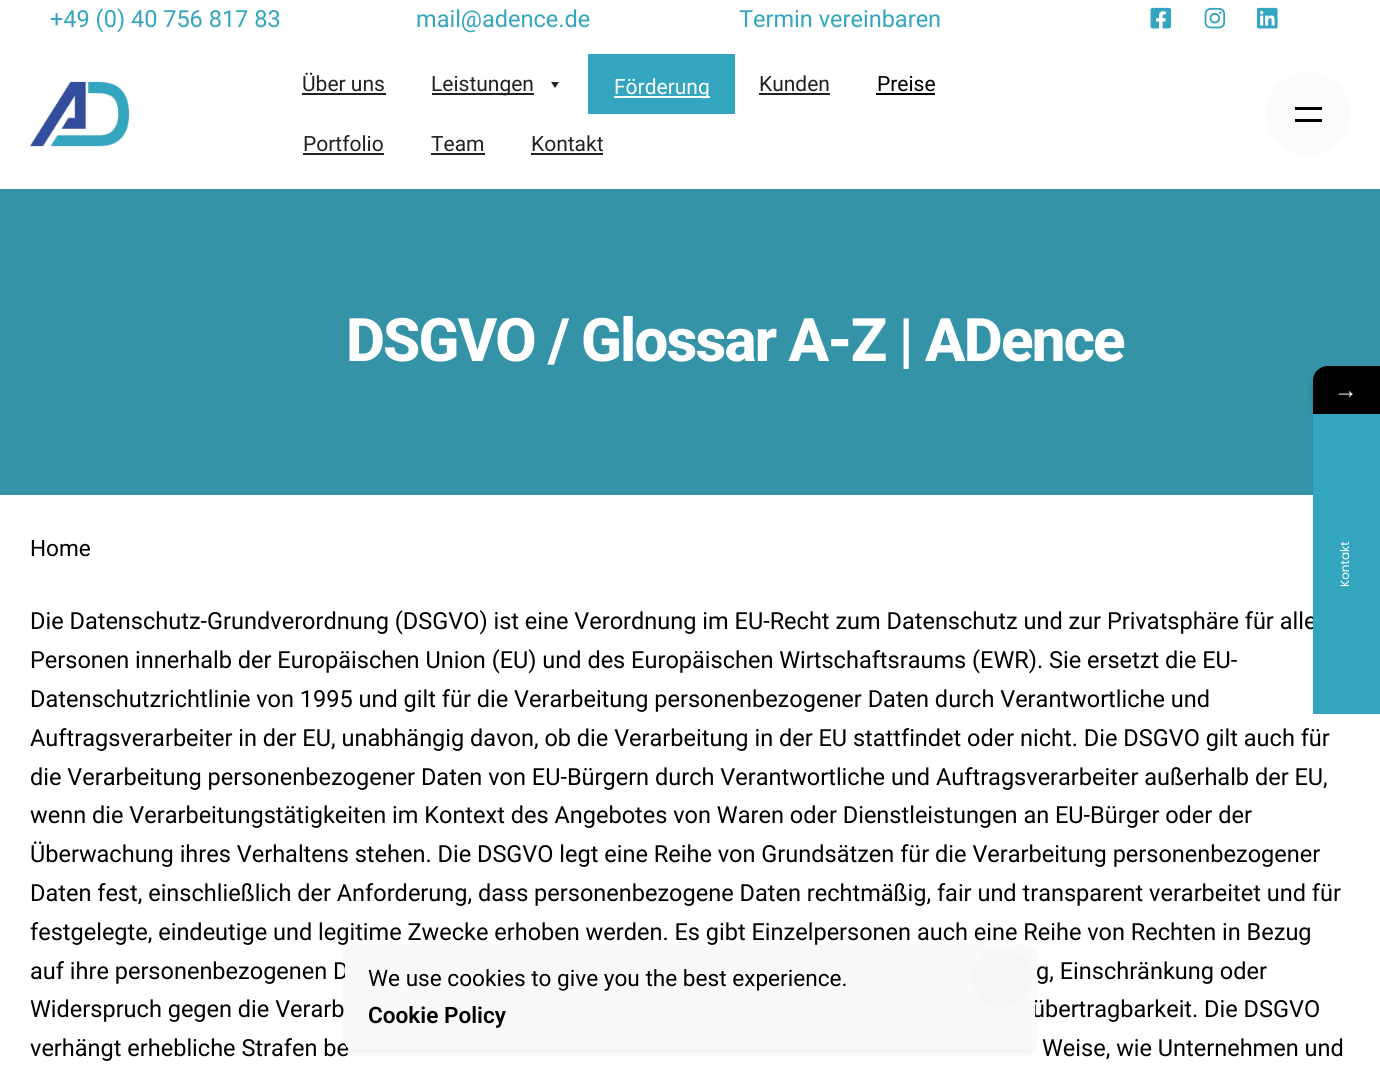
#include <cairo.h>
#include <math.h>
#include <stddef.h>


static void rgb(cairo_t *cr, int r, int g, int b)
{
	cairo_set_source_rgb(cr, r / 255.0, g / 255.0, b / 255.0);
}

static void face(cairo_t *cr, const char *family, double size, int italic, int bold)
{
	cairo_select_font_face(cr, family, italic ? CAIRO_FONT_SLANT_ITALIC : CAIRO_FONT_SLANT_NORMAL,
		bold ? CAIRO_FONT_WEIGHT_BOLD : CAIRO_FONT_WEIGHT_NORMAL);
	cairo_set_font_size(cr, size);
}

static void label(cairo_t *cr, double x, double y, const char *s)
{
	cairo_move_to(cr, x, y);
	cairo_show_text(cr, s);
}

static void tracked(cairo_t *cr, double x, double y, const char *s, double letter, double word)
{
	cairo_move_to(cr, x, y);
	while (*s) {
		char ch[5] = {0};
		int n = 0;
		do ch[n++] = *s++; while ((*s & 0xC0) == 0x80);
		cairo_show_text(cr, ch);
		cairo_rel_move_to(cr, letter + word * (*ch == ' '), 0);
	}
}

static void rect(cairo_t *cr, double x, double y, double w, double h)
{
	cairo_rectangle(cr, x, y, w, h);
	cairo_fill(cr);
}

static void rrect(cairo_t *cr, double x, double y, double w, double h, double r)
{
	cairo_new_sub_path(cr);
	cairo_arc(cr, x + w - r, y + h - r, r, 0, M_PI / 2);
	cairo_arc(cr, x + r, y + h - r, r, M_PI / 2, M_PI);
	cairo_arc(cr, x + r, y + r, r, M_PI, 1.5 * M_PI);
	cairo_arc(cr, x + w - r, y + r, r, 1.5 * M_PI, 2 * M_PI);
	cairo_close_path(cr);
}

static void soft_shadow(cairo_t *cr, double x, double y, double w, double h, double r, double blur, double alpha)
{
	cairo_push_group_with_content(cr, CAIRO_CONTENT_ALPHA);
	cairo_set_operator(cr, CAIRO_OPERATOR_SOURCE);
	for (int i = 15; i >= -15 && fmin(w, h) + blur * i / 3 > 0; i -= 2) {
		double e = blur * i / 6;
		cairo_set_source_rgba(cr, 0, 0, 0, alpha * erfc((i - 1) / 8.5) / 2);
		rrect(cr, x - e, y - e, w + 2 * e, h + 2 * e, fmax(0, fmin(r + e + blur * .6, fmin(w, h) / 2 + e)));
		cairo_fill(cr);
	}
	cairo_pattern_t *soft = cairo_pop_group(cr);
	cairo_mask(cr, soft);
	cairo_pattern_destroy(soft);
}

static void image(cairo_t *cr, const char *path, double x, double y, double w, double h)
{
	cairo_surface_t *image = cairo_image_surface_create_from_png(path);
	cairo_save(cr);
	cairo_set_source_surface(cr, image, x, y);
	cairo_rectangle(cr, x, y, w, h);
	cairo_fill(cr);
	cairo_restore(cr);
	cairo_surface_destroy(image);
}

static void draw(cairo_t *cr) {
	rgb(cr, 255, 255, 255);
	cairo_paint(cr);
	face(cr, "Roboto", 23.52, 0, 0);
	rgb(cr, 52, 165, 191);
	label(cr, 50, 27, "+49 (0) 40 756 817 83");
	label(cr, 416, 27, "mail@adence.de");
	label(cr, 739, 27, "Termin vereinbaren");
	image(cr, "image0.png", 1150, 7, 22, 22);
	image(cr, "image1.png", 1204, 7, 22, 22);
	image(cr, "image2.png", 1257, 7, 21, 22);
	image(cr, "image3.png", 30, 81, 99, 66);
	face(cr, "Roboto", 21, 0, 0);
	rgb(cr, 34, 34, 34);
	label(cr, 302, 91, "Über uns");
	rect(cr, 302, 93, 84, 2);
	rect(cr, 432, 93, 102, 2);
	label(cr, 431, 91, "Leistungen");
	cairo_new_path(cr);
	cairo_move_to(cr, 559, 82);
	cairo_line_to(cr, 555, 88);
	cairo_line_to(cr, 551, 82);
	cairo_close_path(cr);
	cairo_fill(cr);
	rgb(cr, 52, 165, 191);
	rect(cr, 588, 54, 147, 60);
	rgb(cr, 255, 255, 255);
	rect(cr, 614, 96, 96, 2);
	label(cr, 614, 94, "Förderung");
	rgb(cr, 34, 34, 34);
	label(cr, 759, 91, "Kunden");
	rect(cr, 759, 93, 71, 2);
	rgb(cr, 0, 0, 0);
	label(cr, 877, 91, "Preise");
	rect(cr, 876, 93, 59, 2);
	rgb(cr, 34, 34, 34);
	label(cr, 303, 151, "Portfolio");
	rect(cr, 303, 153, 81, 2);
	label(cr, 431, 151, "Team");
	rect(cr, 431, 153, 54, 2);
	label(cr, 531, 151, "Kontakt");
	rect(cr, 531, 153, 72, 2);
	rgb(cr, 251, 251, 251);
	cairo_new_path(cr);
	cairo_arc(cr, 1308, 114, 42, 0, 2 * M_PI);
	cairo_fill(cr);
	rgb(cr, 0, 0, 0);
	rect(cr, 1295, 107, 27, 3);
	rect(cr, 1295, 119, 27, 3);
	rgb(cr, 53, 147, 168);
	rect(cr, 0, 189, 1380, 306);
	face(cr, "Roboto ExtraBold", 60, 0, 0);
	rgb(cr, 255, 255, 255);
	tracked(cr, 346, 361, "DSGVO / Glossar A-Z | ADence", -1.8, 0);
	face(cr, "Roboto", 22.6, 0, 0);
	rgb(cr, 0, 0, 0);
	label(cr, 30, 556, "Home");
	face(cr, "Roboto", 23.52, 0, 0);
	label(cr, 30, 629, "Die Datenschutz-Grundverordnung (DSGVO) ist eine Verordnung im EU-Recht zum Datenschutz und zur Privatsphäre für alle");
	label(cr, 30, 668, "Personen innerhalb der Europäischen Union (EU) und des Europäischen Wirtschaftsraums (EWR). Sie ersetzt die EU-");
	label(cr, 30, 707, "Datenschutzrichtlinie von 1995 und gilt für die Verarbeitung personenbezogener Daten durch Verantwortliche und");
	label(cr, 30, 746, "Auftragsverarbeiter in der EU, unabhängig davon, ob die Verarbeitung in der EU stattfindet oder nicht. Die DSGVO gilt auch für");
	label(cr, 30, 785, "die Verarbeitung personenbezogener Daten von EU-Bürgern durch Verantwortliche und Auftragsverarbeiter außerhalb der EU,");
	label(cr, 30, 823, "wenn die Verarbeitungstätigkeiten im Kontext des Angebotes von Waren oder Dienstleistungen an EU-Bürger oder der");
	label(cr, 30, 862, "Überwachung ihres Verhaltens stehen. Die DSGVO legt eine Reihe von Grundsätzen für die Verarbeitung personenbezogener");
	label(cr, 30, 901, "Daten fest, einschließlich der Anforderung, dass personenbezogene Daten rechtmäßig, fair und transparent verarbeitet und für");
	label(cr, 30, 940, "festgelegte, eindeutige und legitime Zwecke erhoben werden. Es gibt Einzelpersonen auch eine Reihe von Rechten in Bezug");
	label(cr, 30, 979, "auf ihre personenbezogenen D");
	label(cr, 1036, 979, "g, Einschränkung oder");
	label(cr, 30, 1017, "Widerspruch gegen die Verarb");
	label(cr, 1032, 1017, "übertragbarkeit. Die DSGVO");
	label(cr, 30, 1056, "verhängt erhebliche Strafen be");
	label(cr, 1042, 1056, "Weise, wie Unternehmen und");
	rgb(cr, 0, 0, 0);
	soft_shadow(cr, 1313, 371, 67, 48, 15, 4.5, 0.16);
	rgb(cr, 0, 0, 0);
	cairo_new_path(cr);
	cairo_move_to(cr, 1328, 366);
	cairo_line_to(cr, 1380, 366);
	cairo_line_to(cr, 1380, 414);
	cairo_line_to(cr, 1313, 414);
	cairo_line_to(cr, 1313, 381);
	cairo_curve_to(cr, 1313, 372.5, 1319.5, 366, 1328, 366);
	cairo_close_path(cr);
	cairo_fill(cr);
	face(cr, "Liberation Serif", 23.52, 0, 0);
	rgb(cr, 255, 255, 255);
	label(cr, 1334, 398, "→");
	rgb(cr, 52, 165, 191);
	rect(cr, 1313, 414, 67, 300);
	face(cr, "Poppins", 12, 0, 0);
	rgb(cr, 255, 255, 255);
	cairo_save(cr);
	cairo_translate(cr, 1349, 587);
	cairo_rotate(cr, -90 * M_PI / 180);
	label(cr, 0, 0, "Kontakt");
	cairo_restore(cr);
	rgb(cr, 0, 0, 0);
	soft_shadow(cr, 345, 948, 690, 105, 8, 3, 0.07);
	rgb(cr, 249, 249, 249);
	rrect(cr, 345, 945, 690, 105, 8);
	cairo_fill(cr);
	face(cr, "Roboto", 22.6, 0, 0);
	rgb(cr, 0, 0, 0);
	label(cr, 368, 986, "We use cookies to give you the best experience.");
	face(cr, "Roboto SemiBold", 22.6, 0, 0);
	label(cr, 368, 1023, "Cookie Policy");
	rgb(cr, 246, 246, 246);
	cairo_new_path(cr);
	cairo_arc(cr, 1002, 978, 30, 0, 2 * M_PI);
	cairo_fill(cr);
}

int main(void) {
	cairo_surface_t *surface = cairo_image_surface_create(CAIRO_FORMAT_RGB24, 1380, 1079);
	cairo_t *cr = cairo_create(surface);
	cairo_font_options_t *options = cairo_font_options_create();
	cairo_font_options_set_hint_metrics(options, CAIRO_HINT_METRICS_OFF);
	cairo_font_options_set_hint_style(options, CAIRO_HINT_STYLE_NONE);
	cairo_set_font_options(cr, options);
	cairo_set_miter_limit(cr, 4);
	draw(cr);
	cairo_surface_write_to_png(surface, "render.png");
	cairo_font_options_destroy(options);
	cairo_destroy(cr);
	cairo_surface_destroy(surface);
	return 0;
}
